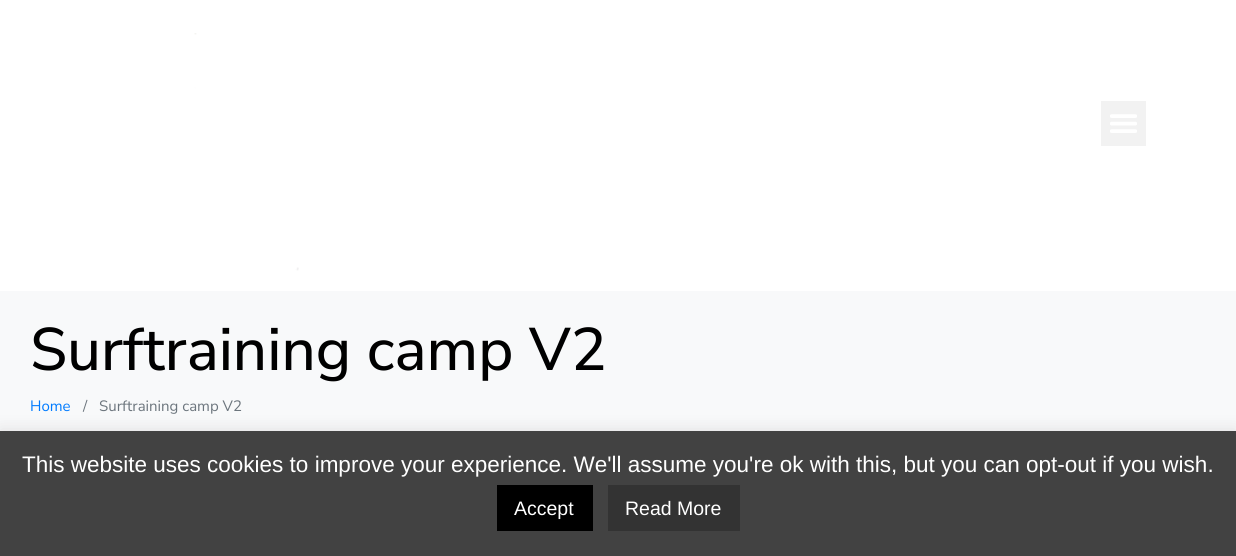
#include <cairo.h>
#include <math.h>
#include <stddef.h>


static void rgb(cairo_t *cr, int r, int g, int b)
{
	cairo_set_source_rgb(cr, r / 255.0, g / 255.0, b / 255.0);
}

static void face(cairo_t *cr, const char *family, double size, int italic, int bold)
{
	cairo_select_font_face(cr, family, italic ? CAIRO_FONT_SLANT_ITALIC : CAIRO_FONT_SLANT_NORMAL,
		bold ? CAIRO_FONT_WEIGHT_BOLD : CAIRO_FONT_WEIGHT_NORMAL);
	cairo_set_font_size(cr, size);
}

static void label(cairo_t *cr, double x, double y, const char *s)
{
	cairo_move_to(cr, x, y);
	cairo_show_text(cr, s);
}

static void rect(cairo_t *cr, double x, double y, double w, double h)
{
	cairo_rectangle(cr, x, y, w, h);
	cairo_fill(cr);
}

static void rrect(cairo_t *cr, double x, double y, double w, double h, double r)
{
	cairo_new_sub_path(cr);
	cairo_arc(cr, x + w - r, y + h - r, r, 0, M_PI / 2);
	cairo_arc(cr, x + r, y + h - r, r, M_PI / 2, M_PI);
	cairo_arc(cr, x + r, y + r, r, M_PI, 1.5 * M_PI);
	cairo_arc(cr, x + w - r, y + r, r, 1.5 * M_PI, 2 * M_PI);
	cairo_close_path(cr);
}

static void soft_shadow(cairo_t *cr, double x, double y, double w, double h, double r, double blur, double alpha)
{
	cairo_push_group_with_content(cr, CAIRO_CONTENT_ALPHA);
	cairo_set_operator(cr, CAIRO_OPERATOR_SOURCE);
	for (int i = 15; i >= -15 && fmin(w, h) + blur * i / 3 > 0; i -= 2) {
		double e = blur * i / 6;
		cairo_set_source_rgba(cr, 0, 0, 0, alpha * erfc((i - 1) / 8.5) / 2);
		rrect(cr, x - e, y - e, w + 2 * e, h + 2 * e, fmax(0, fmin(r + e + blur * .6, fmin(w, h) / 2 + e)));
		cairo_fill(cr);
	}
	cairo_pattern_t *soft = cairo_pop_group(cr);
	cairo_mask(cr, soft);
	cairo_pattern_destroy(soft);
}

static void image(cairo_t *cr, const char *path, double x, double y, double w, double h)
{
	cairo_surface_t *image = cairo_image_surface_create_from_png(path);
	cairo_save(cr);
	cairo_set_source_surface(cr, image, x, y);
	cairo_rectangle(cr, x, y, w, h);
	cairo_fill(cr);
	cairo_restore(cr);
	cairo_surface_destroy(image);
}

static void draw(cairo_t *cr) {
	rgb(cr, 255, 255, 255);
	cairo_paint(cr);
	image(cr, "image0.png", 194, 33, 105, 238);
	rgb(cr, 242, 242, 242);
	rect(cr, 1101, 101, 45, 45);
	image(cr, "image1.png", 1110, 114, 27, 19);
	rgb(cr, 248, 249, 250);
	rect(cr, 0, 291, 1236, 140);
	face(cr, "Nunito Sans Medium", 60, 0, 0);
	rgb(cr, 0, 0, 0);
	label(cr, 30, 370, "Surftraining camp V2");
	face(cr, "Nunito Sans", 15, 0, 0);
	rgb(cr, 0, 123, 255);
	label(cr, 30, 411, "Home");
	rgb(cr, 108, 117, 125);
	label(cr, 83, 411, "/");
	label(cr, 99, 411, "Surftraining camp V2");
	rgb(cr, 172, 171, 171);
	soft_shadow(cr, 0, 429, 1236, 126, 0, 7.5, 0.3);
	rgb(cr, 66, 66, 66);
	rect(cr, 0, 431, 1236, 125);
	face(cr, "Liberation Sans", 22.5, 0, 0);
	rgb(cr, 255, 255, 255);
	label(cr, 22, 472, "This website uses cookies to improve your experience. We'll assume you're ok with this, but you can opt-out if you wish.");
	rgb(cr, 0, 0, 0);
	rect(cr, 497, 485, 96, 46);
	face(cr, "Liberation Sans", 19.5, 0, 0);
	rgb(cr, 255, 255, 255);
	label(cr, 514, 515, "Accept");
	rgb(cr, 51, 51, 51);
	rect(cr, 608, 485, 132, 46);
	rgb(cr, 255, 255, 255);
	label(cr, 625, 515, "Read More");
}

int main(void) {
	cairo_surface_t *surface = cairo_image_surface_create(CAIRO_FORMAT_RGB24, 1236, 556);
	cairo_t *cr = cairo_create(surface);
	cairo_font_options_t *options = cairo_font_options_create();
	cairo_font_options_set_hint_metrics(options, CAIRO_HINT_METRICS_OFF);
	cairo_font_options_set_hint_style(options, CAIRO_HINT_STYLE_NONE);
	cairo_set_font_options(cr, options);
	cairo_set_miter_limit(cr, 4);
	draw(cr);
	cairo_surface_write_to_png(surface, "render.png");
	cairo_font_options_destroy(options);
	cairo_destroy(cr);
	cairo_surface_destroy(surface);
	return 0;
}
